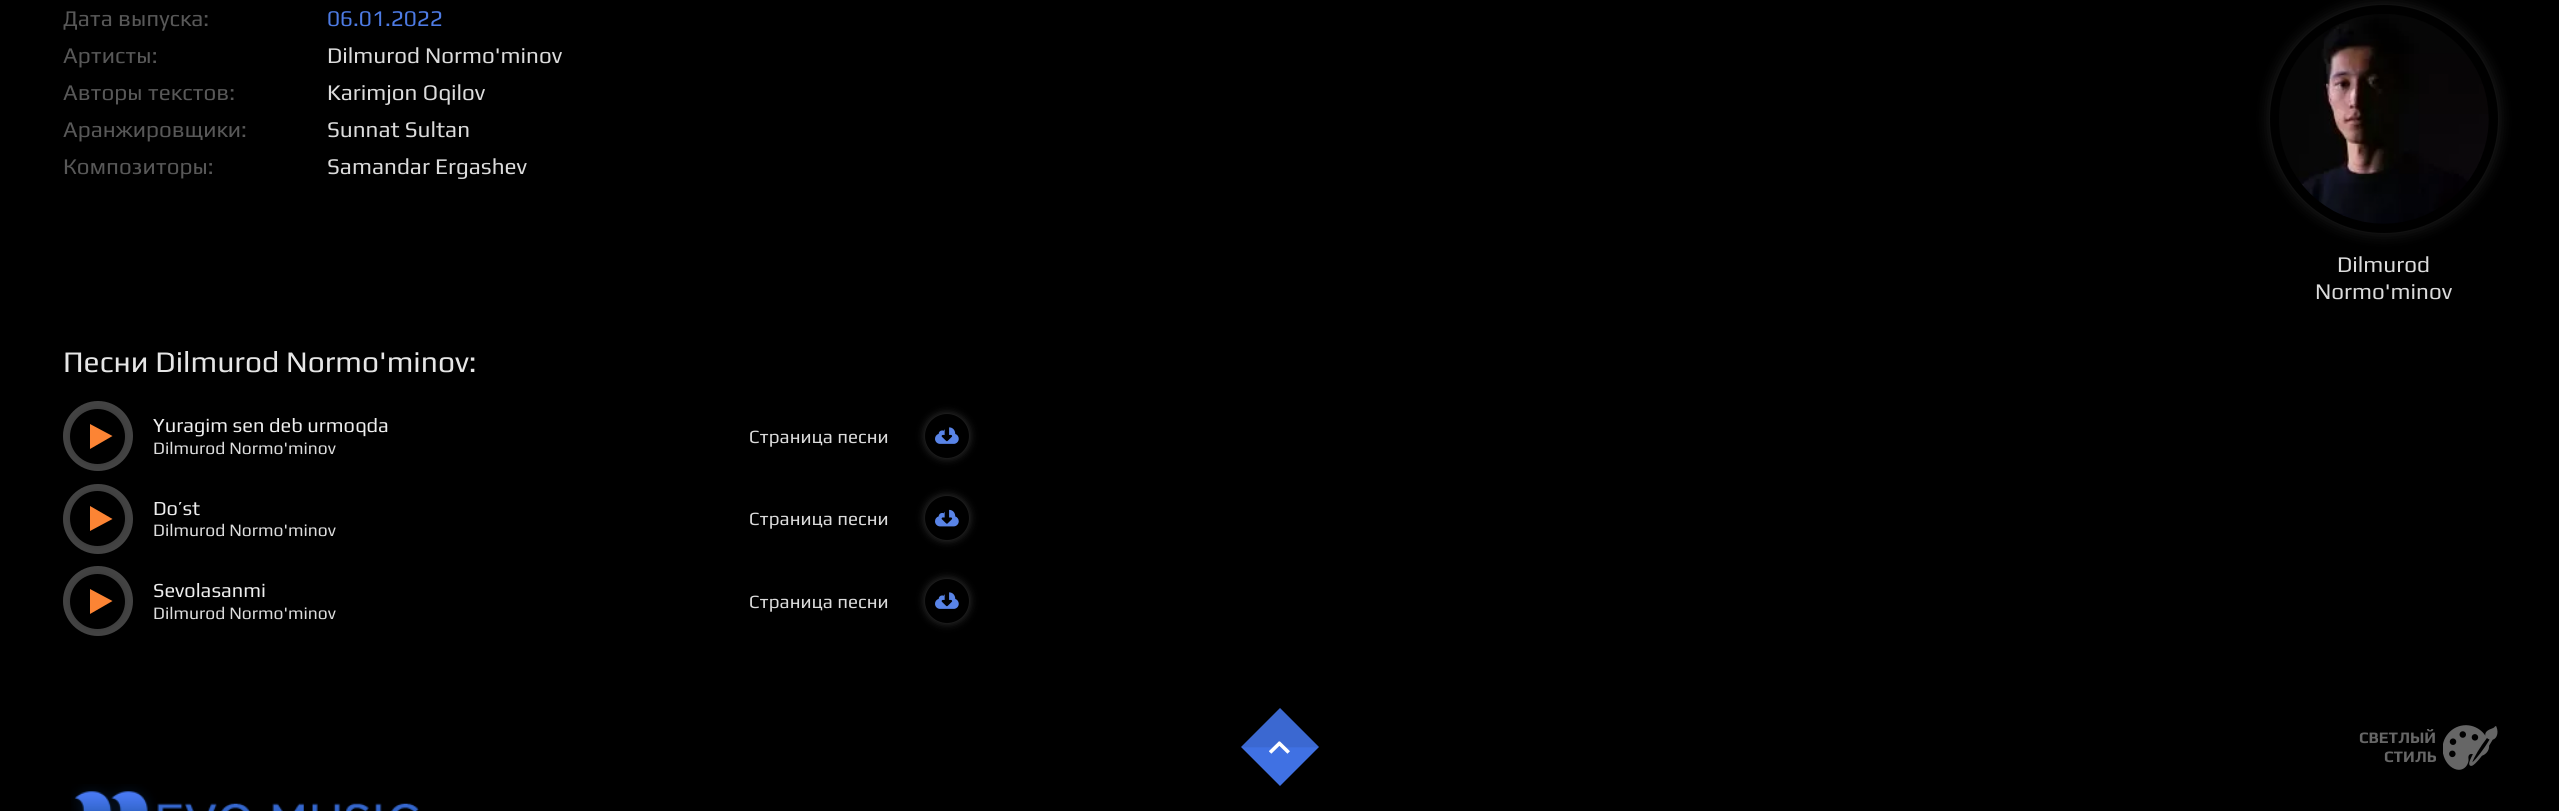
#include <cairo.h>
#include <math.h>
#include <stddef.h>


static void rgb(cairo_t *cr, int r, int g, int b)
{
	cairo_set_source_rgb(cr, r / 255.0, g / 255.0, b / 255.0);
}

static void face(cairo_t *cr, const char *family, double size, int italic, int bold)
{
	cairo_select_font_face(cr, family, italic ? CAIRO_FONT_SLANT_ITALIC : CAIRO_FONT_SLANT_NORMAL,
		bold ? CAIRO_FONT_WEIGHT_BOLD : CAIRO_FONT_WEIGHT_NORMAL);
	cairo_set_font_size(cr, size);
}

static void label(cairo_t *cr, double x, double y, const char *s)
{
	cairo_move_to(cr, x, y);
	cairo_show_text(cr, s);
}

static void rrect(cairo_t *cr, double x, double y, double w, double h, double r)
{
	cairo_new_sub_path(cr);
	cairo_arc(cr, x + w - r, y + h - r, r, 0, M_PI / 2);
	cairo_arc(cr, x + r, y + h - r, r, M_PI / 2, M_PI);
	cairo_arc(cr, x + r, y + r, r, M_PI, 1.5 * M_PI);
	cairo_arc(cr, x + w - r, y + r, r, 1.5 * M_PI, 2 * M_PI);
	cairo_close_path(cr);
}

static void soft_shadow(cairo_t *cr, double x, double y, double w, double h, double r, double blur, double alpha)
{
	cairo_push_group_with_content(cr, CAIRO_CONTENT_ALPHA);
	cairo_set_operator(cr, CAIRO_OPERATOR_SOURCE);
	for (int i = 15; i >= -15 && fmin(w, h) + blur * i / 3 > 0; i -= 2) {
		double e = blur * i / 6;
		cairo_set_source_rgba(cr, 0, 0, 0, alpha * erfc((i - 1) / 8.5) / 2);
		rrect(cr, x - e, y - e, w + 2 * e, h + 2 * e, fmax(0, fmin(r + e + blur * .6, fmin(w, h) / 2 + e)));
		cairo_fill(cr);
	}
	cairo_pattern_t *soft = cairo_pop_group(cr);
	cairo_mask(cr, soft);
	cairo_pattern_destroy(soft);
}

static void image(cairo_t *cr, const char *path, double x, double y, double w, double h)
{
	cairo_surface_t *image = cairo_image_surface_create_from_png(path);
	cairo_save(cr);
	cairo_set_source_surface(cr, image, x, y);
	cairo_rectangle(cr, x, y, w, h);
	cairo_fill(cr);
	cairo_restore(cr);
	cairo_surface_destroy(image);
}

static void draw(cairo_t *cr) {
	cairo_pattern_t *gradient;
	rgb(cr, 0, 0, 0);
	cairo_paint(cr);
	face(cr, "Play", 22.5, 0, 0);
	rgb(cr, 88, 88, 88);
	label(cr, 63, 26, "Дата выпуска:");
	rgb(cr, 77, 123, 228);
	label(cr, 327, 26, "06.01.2022");
	rgb(cr, 88, 88, 88);
	label(cr, 63, 63, "Артисты:");
	rgb(cr, 220, 220, 220);
	label(cr, 327, 63, "Dilmurod Normo'minov");
	rgb(cr, 88, 88, 88);
	label(cr, 63, 100, "Авторы текстов:");
	rgb(cr, 220, 220, 220);
	label(cr, 327, 100, "Karimjon Oqilov");
	rgb(cr, 88, 88, 88);
	label(cr, 63, 137, "Аранжировщики:");
	rgb(cr, 220, 220, 220);
	label(cr, 327, 137, "Sunnat Sultan");
	rgb(cr, 88, 88, 88);
	label(cr, 63, 174, "Композиторы:");
	rgb(cr, 220, 220, 220);
	label(cr, 327, 174, "Samandar Ergashev");
	rgb(cr, 255, 255, 255);
	soft_shadow(cr, 2270, 5, 228, 228, 114, 7.5, 0.13);
	rgb(cr, 0, 0, 0);
	cairo_arc(cr, 2384, 119, 114, 0, 2 * M_PI);
	cairo_fill(cr);
	image(cr, "image0.png", 2279, 14, 210, 210);
	rgb(cr, 220, 220, 220);
	label(cr, 2337, 272, "Dilmurod");
	label(cr, 2315, 299, "Normo'minov");
	face(cr, "Play", 30, 0, 0);
	rgb(cr, 230, 230, 230);
	label(cr, 63, 372, "Песни Dilmurod Normo'minov:");
	rgb(cr, 68, 68, 68);
	cairo_new_path(cr);
	cairo_arc(cr, 98, 436, 35, 0, 2 * M_PI);
	cairo_fill(cr);
	rgb(cr, 0, 0, 0);
	soft_shadow(cr, 70, 409, 55, 55, 27.5, 4.5, 0.15);
	rgb(cr, 0, 0, 0);
	cairo_arc(cr, 97.5, 436.5, 27.5, 0, 2 * M_PI);
	cairo_fill(cr);
	rgb(cr, 252, 132, 52);
	cairo_new_path(cr);
	cairo_move_to(cr, 90, 449);
	cairo_line_to(cr, 90, 424);
	cairo_line_to(cr, 112.5, 436);
	cairo_close_path(cr);
	cairo_fill(cr);
	face(cr, "Play", 20, 0, 0);
	rgb(cr, 238, 238, 238);
	label(cr, 153, 432, "Yuragim sen deb urmoqda");
	face(cr, "Play", 17.5, 0, 0);
	rgb(cr, 220, 220, 220);
	label(cr, 153, 454, "Dilmurod Normo'minov");
	face(cr, "Play", 18.75, 0, 0);
	label(cr, 749, 443, "Страница песни");
	rgb(cr, 255, 255, 255);
	soft_shadow(cr, 925, 414, 44, 44, 22, 4.5, 0.22);
	rgb(cr, 0, 0, 0);
	cairo_arc(cr, 947, 436, 22, 0, 2 * M_PI);
	cairo_fill(cr);
	image(cr, "image1.png", 935, 427, 24, 17);
	rgb(cr, 68, 68, 68);
	cairo_arc(cr, 98, 519, 35, 0, 2 * M_PI);
	cairo_fill(cr);
	rgb(cr, 0, 0, 0);
	soft_shadow(cr, 70, 491, 55, 55, 27.5, 4.5, 0.15);
	rgb(cr, 0, 0, 0);
	cairo_arc(cr, 97.5, 518.5, 27.5, 0, 2 * M_PI);
	cairo_fill(cr);
	rgb(cr, 252, 132, 52);
	cairo_new_path(cr);
	cairo_move_to(cr, 90, 531);
	cairo_line_to(cr, 90, 506);
	cairo_line_to(cr, 112.5, 519);
	cairo_close_path(cr);
	cairo_fill(cr);
	face(cr, "Play", 20, 0, 0);
	rgb(cr, 238, 238, 238);
	label(cr, 153, 515, "Do’st");
	face(cr, "Play", 17.5, 0, 0);
	rgb(cr, 220, 220, 220);
	label(cr, 153, 536, "Dilmurod Normo'minov");
	face(cr, "Play", 18.75, 0, 0);
	label(cr, 749, 525, "Страница песни");
	rgb(cr, 255, 255, 255);
	soft_shadow(cr, 925, 496, 44, 44, 22, 4.5, 0.22);
	rgb(cr, 0, 0, 0);
	cairo_arc(cr, 947, 518, 22, 0, 2 * M_PI);
	cairo_fill(cr);
	image(cr, "image2.png", 935, 509, 24, 18);
	rgb(cr, 68, 68, 68);
	cairo_arc(cr, 98, 601, 35, 0, 2 * M_PI);
	cairo_fill(cr);
	rgb(cr, 0, 0, 0);
	soft_shadow(cr, 70, 574, 55, 55, 27.5, 4.5, 0.15);
	rgb(cr, 0, 0, 0);
	cairo_arc(cr, 97.5, 601.5, 27.5, 0, 2 * M_PI);
	cairo_fill(cr);
	rgb(cr, 252, 132, 52);
	cairo_new_path(cr);
	cairo_move_to(cr, 90, 614);
	cairo_line_to(cr, 90, 589);
	cairo_line_to(cr, 112.5, 601);
	cairo_close_path(cr);
	cairo_fill(cr);
	face(cr, "Play", 20, 0, 0);
	rgb(cr, 238, 238, 238);
	label(cr, 153, 597, "Sevolasanmi");
	face(cr, "Play", 17.5, 0, 0);
	rgb(cr, 220, 220, 220);
	label(cr, 153, 619, "Dilmurod Normo'minov");
	face(cr, "Play", 18.75, 0, 0);
	label(cr, 749, 608, "Страница песни");
	rgb(cr, 255, 255, 255);
	soft_shadow(cr, 925, 579, 44, 44, 22, 4.5, 0.22);
	rgb(cr, 0, 0, 0);
	cairo_arc(cr, 947, 601, 22, 0, 2 * M_PI);
	cairo_fill(cr);
	image(cr, "image1.png", 935, 592, 24, 17);
	gradient = cairo_pattern_create_linear(1280, 708, 1280, 786);
	cairo_pattern_add_color_stop_rgba(gradient, 0, 0.231, 0.408, 0.82, 1);
	cairo_pattern_add_color_stop_rgba(gradient, 0.5, 0.231, 0.408, 0.82, 1);
	cairo_pattern_add_color_stop_rgba(gradient, 0.51, 0.251, 0.443, 0.89, 1);
	cairo_pattern_add_color_stop_rgba(gradient, 1, 0.251, 0.443, 0.89, 1);
	cairo_set_source(cr, gradient);
	cairo_pattern_destroy(gradient);
	cairo_new_path(cr);
	cairo_move_to(cr, 1280, 708);
	cairo_line_to(cr, 1319, 747);
	cairo_line_to(cr, 1280, 786);
	cairo_line_to(cr, 1241, 747);
	cairo_close_path(cr);
	cairo_fill(cr);
	image(cr, "image3.png", 1269, 741, 21, 13);
	face(cr, "Play", 16, 0, 1);
	rgb(cr, 102, 102, 102);
	label(cr, 2359, 743, "СВЕТЛЫЙ");
	label(cr, 2384, 762, "СТИЛЬ");
	image(cr, "image4.png", 2443, 725, 55, 45);
	image(cr, "image5.png", 71, 784, 348, 27);
}

int main(void) {
	cairo_surface_t *surface = cairo_image_surface_create(CAIRO_FORMAT_RGB24, 2559, 811);
	cairo_t *cr = cairo_create(surface);
	cairo_font_options_t *options = cairo_font_options_create();
	cairo_font_options_set_hint_metrics(options, CAIRO_HINT_METRICS_OFF);
	cairo_font_options_set_hint_style(options, CAIRO_HINT_STYLE_NONE);
	cairo_set_font_options(cr, options);
	cairo_set_miter_limit(cr, 4);
	draw(cr);
	cairo_surface_write_to_png(surface, "render.png");
	cairo_font_options_destroy(options);
	cairo_destroy(cr);
	cairo_surface_destroy(surface);
	return 0;
}
